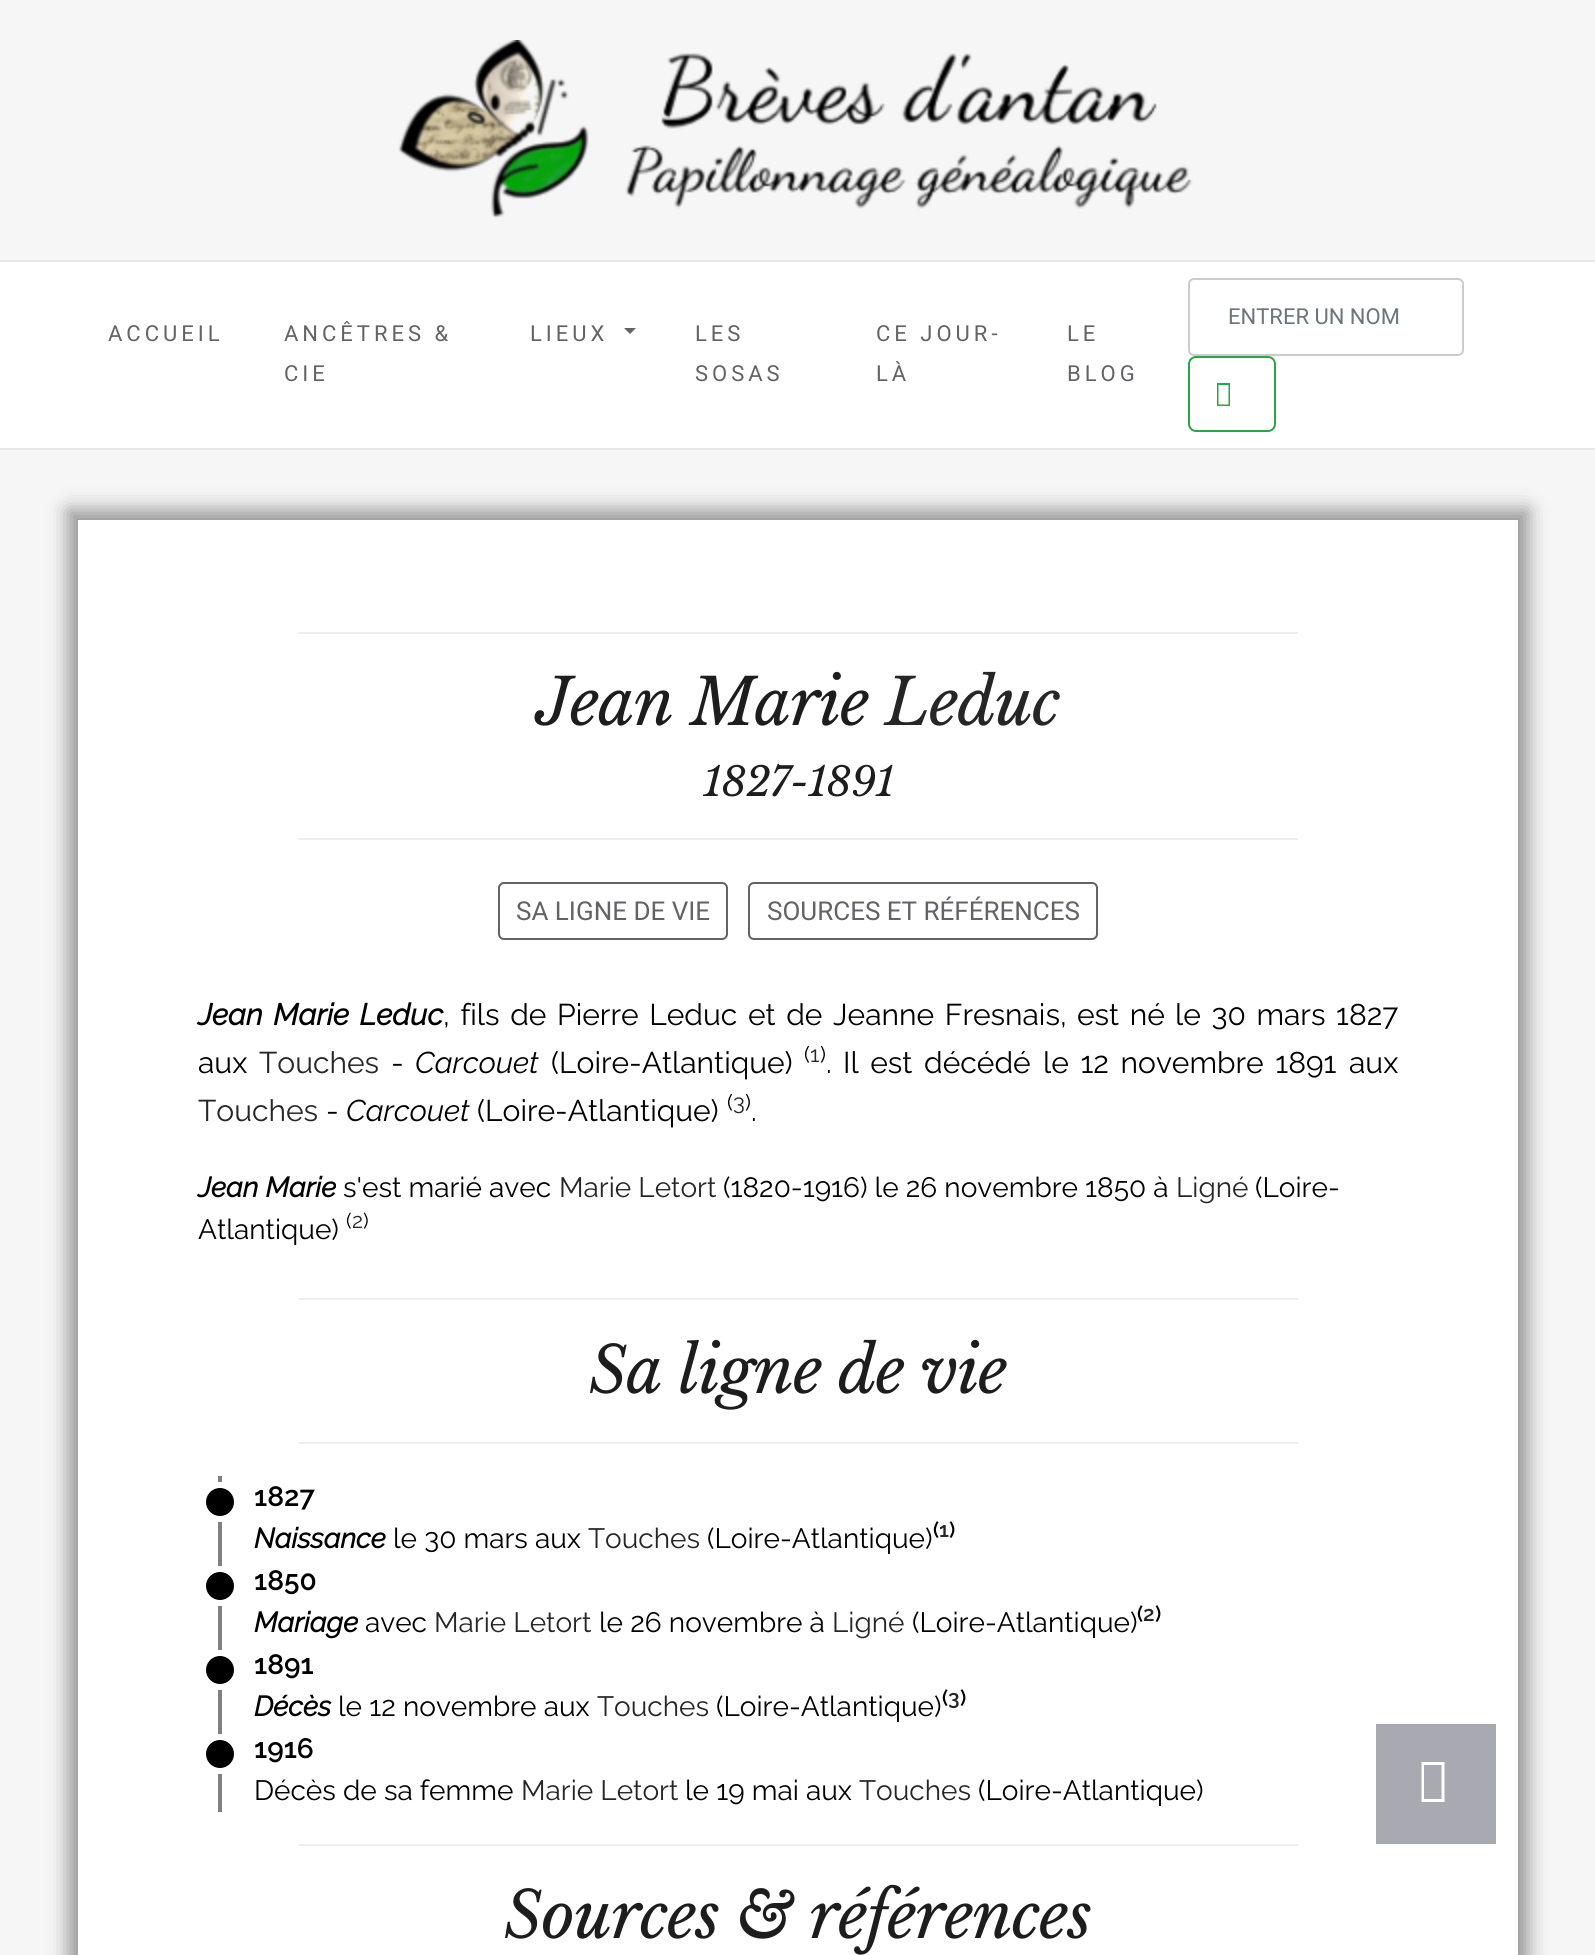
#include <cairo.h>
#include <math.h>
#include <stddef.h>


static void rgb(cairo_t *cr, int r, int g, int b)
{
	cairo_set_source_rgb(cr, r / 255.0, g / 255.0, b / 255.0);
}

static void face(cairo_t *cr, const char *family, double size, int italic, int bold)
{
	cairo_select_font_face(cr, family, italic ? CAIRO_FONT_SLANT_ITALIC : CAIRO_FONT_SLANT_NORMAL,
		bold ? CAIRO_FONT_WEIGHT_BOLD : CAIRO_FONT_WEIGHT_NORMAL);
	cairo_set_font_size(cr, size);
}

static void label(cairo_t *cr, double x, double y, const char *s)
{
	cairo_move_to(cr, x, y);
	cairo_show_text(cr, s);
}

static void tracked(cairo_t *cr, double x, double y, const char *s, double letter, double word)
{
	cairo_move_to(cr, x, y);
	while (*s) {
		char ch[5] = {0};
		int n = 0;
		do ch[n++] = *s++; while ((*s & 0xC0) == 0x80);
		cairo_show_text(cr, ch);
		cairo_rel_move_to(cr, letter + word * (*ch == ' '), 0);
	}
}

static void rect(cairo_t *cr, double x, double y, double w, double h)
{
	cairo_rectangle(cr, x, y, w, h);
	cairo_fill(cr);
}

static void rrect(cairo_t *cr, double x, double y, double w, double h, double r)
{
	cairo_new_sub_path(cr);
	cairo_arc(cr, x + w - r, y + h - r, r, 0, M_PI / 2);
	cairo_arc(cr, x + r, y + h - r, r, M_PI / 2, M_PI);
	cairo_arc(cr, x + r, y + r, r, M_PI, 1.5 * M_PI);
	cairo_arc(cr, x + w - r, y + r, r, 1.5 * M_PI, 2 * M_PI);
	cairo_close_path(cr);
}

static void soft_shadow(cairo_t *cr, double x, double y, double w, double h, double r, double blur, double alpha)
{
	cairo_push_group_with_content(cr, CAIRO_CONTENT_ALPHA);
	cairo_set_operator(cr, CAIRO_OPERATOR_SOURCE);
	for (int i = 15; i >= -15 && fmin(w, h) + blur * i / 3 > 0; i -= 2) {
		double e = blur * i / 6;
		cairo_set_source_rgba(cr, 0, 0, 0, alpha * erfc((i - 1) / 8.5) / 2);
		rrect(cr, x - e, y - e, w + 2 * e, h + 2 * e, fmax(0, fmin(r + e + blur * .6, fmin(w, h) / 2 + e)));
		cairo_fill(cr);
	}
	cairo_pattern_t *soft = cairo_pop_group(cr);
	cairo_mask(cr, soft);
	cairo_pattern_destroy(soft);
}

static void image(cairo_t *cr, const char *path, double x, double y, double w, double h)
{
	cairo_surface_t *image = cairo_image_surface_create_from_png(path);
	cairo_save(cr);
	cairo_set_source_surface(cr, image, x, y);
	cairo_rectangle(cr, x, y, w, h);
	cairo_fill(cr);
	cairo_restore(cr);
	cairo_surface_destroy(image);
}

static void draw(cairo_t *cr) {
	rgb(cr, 246, 246, 246);
	cairo_paint(cr);
	image(cr, "image0.png", 398, 40, 795, 179);
	rgb(cr, 255, 255, 255);
	rect(cr, 0, 262, 1595, 186);
	rgb(cr, 232, 232, 232);
	rect(cr, 0, 260, 1595, 2);
	rect(cr, 0, 448, 1595, 2);
	rrect(cr, 1189, 279, 274, 76, 5);
	rgb(cr, 204, 204, 204);
	cairo_stroke(cr);
	face(cr, "Roboto", 22, 0, 0);
	rgb(cr, 108, 117, 125);
	label(cr, 1228, 324, "ENTRER UN NOM");
	rrect(cr, 1189, 357, 86, 74, 7);
	rgb(cr, 40, 167, 69);
	cairo_stroke(cr);
	cairo_new_path(cr);
	cairo_move_to(cr, 1217, 406);
	cairo_line_to(cr, 1217, 383);
	cairo_line_to(cr, 1230, 383);
	cairo_line_to(cr, 1230, 406);
	cairo_close_path(cr);
	cairo_move_to(cr, 1218.5, 404.5);
	cairo_line_to(cr, 1228.5, 404.5);
	cairo_line_to(cr, 1228.5, 385);
	cairo_line_to(cr, 1218.5, 385);
	cairo_close_path(cr);
	cairo_fill(cr);
	rgb(cr, 99, 99, 103);
	tracked(cr, 108, 341, "ACCUEIL", 4, 0);
	tracked(cr, 284, 341, "ANCÊTRES &", 4, 0);
	tracked(cr, 284, 381, "CIE", 4, 0);
	tracked(cr, 530, 341, "LIEUX", 4, 0);
	cairo_new_path(cr);
	cairo_move_to(cr, 624, 328);
	cairo_line_to(cr, 636, 328);
	cairo_line_to(cr, 630, 334);
	cairo_close_path(cr);
	cairo_fill(cr);
	tracked(cr, 695, 341, "LES", 4, 0);
	tracked(cr, 695, 381, "SOSAS", 4, 0);
	tracked(cr, 876, 341, "CE JOUR-", 4, 0);
	tracked(cr, 876, 381, "LÀ", 4, 0);
	tracked(cr, 1067, 341, "LE", 4, 0);
	tracked(cr, 1067, 381, "BLOG", 4, 0);
	rgb(cr, 0, 0, 0);
	soft_shadow(cr, 68, 510, 1460, 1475, 0, 10, 0.4);
	rgb(cr, 255, 255, 255);
	rect(cr, 78, 520, 1440, 1435);
	rgb(cr, 238, 238, 238);
	rect(cr, 298, 632, 1000, 2);
	face(cr, "Libre Baskerville", 64, 1, 0);
	rgb(cr, 29, 29, 29);
	tracked(cr, 536, 725, "Jean Marie", -0.8, 0);
	rgb(cr, 38, 38, 39);
	tracked(cr, 885, 725, "Leduc", -0.8, 0);
	face(cr, "Libre Baskerville", 40, 1, 0);
	rgb(cr, 29, 29, 29);
	tracked(cr, 703, 796, "1827-1891", -0.8, 0);
	rgb(cr, 238, 238, 238);
	rect(cr, 298, 838, 1000, 2);
	rrect(cr, 499, 883, 228, 56, 5);
	rgb(cr, 99, 99, 103);
	cairo_stroke(cr);
	face(cr, "Roboto", 26, 0, 0);
	label(cr, 516, 920, "SA LIGNE DE VIE");
	rrect(cr, 749, 883, 348, 56, 5);
	cairo_stroke(cr);
	label(cr, 767, 920, "SOURCES ET RÉFÉRENCES");
	face(cr, "Raleway", 30, 1, 1);
	rgb(cr, 0, 0, 0);
	tracked(cr, 198, 1025, "Jean Marie Leduc", 0, 3);
	face(cr, "Raleway", 30, 0, 0);
	tracked(cr, 443, 1025, ", fils de Pierre Leduc et de Jeanne Fresnais,", 0, 3);
	tracked(cr, 1077, 1025, "est né", 0, 3);
	tracked(cr, 1175, 1025, "le 30 mars 1827", 0, 3);
	label(cr, 198, 1073, "aux");
	rgb(cr, 38, 38, 39);
	label(cr, 259, 1073, "Touches");
	rgb(cr, 0, 0, 0);
	label(cr, 391, 1073, "-");
	face(cr, "Raleway Thin", 30, 1, 0);
	label(cr, 415, 1073, "Carcouet");
	face(cr, "Raleway", 30, 0, 0);
	label(cr, 551, 1073, "(Loire-Atlantique)");
	face(cr, "Raleway", 22, 0, 0);
	label(cr, 804, 1062, "(");
	rgb(cr, 38, 38, 39);
	label(cr, 810, 1062, "1");
	rgb(cr, 0, 0, 0);
	label(cr, 820, 1062, ")");
	face(cr, "Raleway", 30, 0, 0);
	tracked(cr, 843, 1073, "Il est décédé", 0, 4);
	tracked(cr, 1043, 1073, "le 12 novembre 1891", 0, 4);
	label(cr, 1349, 1073, "aux");
	label(cr, 826, 1073, ".");
	rgb(cr, 38, 38, 39);
	label(cr, 198, 1121, "Touches");
	rgb(cr, 0, 0, 0);
	label(cr, 326, 1121, "-");
	face(cr, "Raleway Thin", 30, 1, 0);
	label(cr, 346, 1121, "Carcouet");
	face(cr, "Raleway", 30, 0, 0);
	label(cr, 477, 1121, "(Loire-Atlantique)");
	face(cr, "Raleway", 22, 0, 0);
	label(cr, 727, 1110, "(");
	rgb(cr, 38, 38, 39);
	label(cr, 733, 1110, "3");
	rgb(cr, 0, 0, 0);
	label(cr, 745, 1110, ")");
	face(cr, "Raleway", 30, 0, 0);
	label(cr, 751, 1121, ".");
	face(cr, "Raleway", 28, 1, 1);
	label(cr, 198, 1197, "Jean Marie");
	face(cr, "Raleway", 28, 0, 0);
	label(cr, 343, 1197, "s'est marié avec");
	rgb(cr, 38, 38, 39);
	label(cr, 559, 1197, "Marie Letort");
	rgb(cr, 0, 0, 0);
	label(cr, 723, 1197, "(1820-1916) le 26 novembre 1850 à");
	rgb(cr, 38, 38, 39);
	label(cr, 1176, 1197, "Ligné");
	rgb(cr, 0, 0, 0);
	label(cr, 1255, 1197, "(Loire-");
	label(cr, 198, 1239, "Atlantique)");
	face(cr, "Raleway", 21, 0, 0);
	label(cr, 346, 1228, "(");
	rgb(cr, 38, 38, 39);
	label(cr, 352, 1228, "2");
	rgb(cr, 0, 0, 0);
	label(cr, 363, 1228, ")");
	rgb(cr, 238, 238, 238);
	rect(cr, 298, 1298, 1000, 2);
	face(cr, "Libre Baskerville", 64, 1, 0);
	rgb(cr, 29, 29, 29);
	tracked(cr, 589, 1393, "Sa ligne de vie", -0.8, 0);
	rgb(cr, 238, 238, 238);
	rect(cr, 298, 1442, 1000, 2);
	rgb(cr, 128, 128, 128);
	rect(cr, 218, 1476, 4, 336);
	cairo_new_path(cr);
	cairo_arc(cr, 220, 1502, 17, 0, 2 * M_PI);
	rgb(cr, 255, 255, 255);
	cairo_set_line_width(cr, 6);
	cairo_stroke(cr);
	rgb(cr, 0, 0, 0);
	cairo_arc(cr, 220, 1502, 14, 0, 2 * M_PI);
	cairo_fill(cr);
	face(cr, "Raleway SemiBold", 28, 0, 0);
	label(cr, 254, 1506, "1827");
	face(cr, "Raleway", 28, 1, 1);
	label(cr, 254, 1548, "Naissance");
	face(cr, "Raleway", 28, 0, 0);
	label(cr, 393, 1548, "le 30 mars aux");
	rgb(cr, 38, 38, 39);
	label(cr, 588, 1548, "Touches");
	rgb(cr, 0, 0, 0);
	label(cr, 707, 1548, "(Loire-Atlantique)");
	face(cr, "Raleway SemiBold", 21, 0, 0);
	label(cr, 933, 1537, "(");
	rgb(cr, 38, 38, 39);
	label(cr, 939, 1537, "1");
	rgb(cr, 0, 0, 0);
	label(cr, 949, 1537, ")");
	cairo_new_path(cr);
	cairo_arc(cr, 220, 1586, 17, 0, 2 * M_PI);
	rgb(cr, 255, 255, 255);
	cairo_stroke(cr);
	rgb(cr, 0, 0, 0);
	cairo_arc(cr, 220, 1586, 14, 0, 2 * M_PI);
	cairo_fill(cr);
	face(cr, "Raleway SemiBold", 28, 0, 0);
	label(cr, 254, 1590, "1850");
	face(cr, "Raleway", 28, 1, 1);
	label(cr, 254, 1632, "Mariage");
	face(cr, "Raleway", 28, 0, 0);
	label(cr, 365, 1632, "avec");
	rgb(cr, 38, 38, 39);
	label(cr, 434, 1632, "Marie Letort");
	rgb(cr, 0, 0, 0);
	label(cr, 599, 1632, "le 26 novembre à");
	rgb(cr, 38, 38, 39);
	label(cr, 832, 1632, "Ligné");
	rgb(cr, 0, 0, 0);
	label(cr, 912, 1632, "(Loire-Atlantique)");
	face(cr, "Raleway SemiBold", 21, 0, 0);
	label(cr, 1137, 1621, "(");
	rgb(cr, 38, 38, 39);
	label(cr, 1143, 1621, "2");
	rgb(cr, 0, 0, 0);
	label(cr, 1155, 1621, ")");
	cairo_new_path(cr);
	cairo_arc(cr, 220, 1670, 17, 0, 2 * M_PI);
	rgb(cr, 255, 255, 255);
	cairo_stroke(cr);
	rgb(cr, 0, 0, 0);
	cairo_arc(cr, 220, 1670, 14, 0, 2 * M_PI);
	cairo_fill(cr);
	face(cr, "Raleway SemiBold", 28, 0, 0);
	label(cr, 254, 1674, "1891");
	face(cr, "Raleway", 28, 1, 1);
	label(cr, 254, 1716, "Décès");
	face(cr, "Raleway", 28, 0, 0);
	label(cr, 338, 1716, "le 12 novembre aux");
	rgb(cr, 38, 38, 39);
	label(cr, 597, 1716, "Touches");
	rgb(cr, 0, 0, 0);
	label(cr, 716, 1716, "(Loire-Atlantique)");
	face(cr, "Raleway SemiBold", 21, 0, 0);
	label(cr, 942, 1705, "(");
	rgb(cr, 38, 38, 39);
	label(cr, 948, 1705, "3");
	rgb(cr, 0, 0, 0);
	label(cr, 960, 1705, ")");
	cairo_new_path(cr);
	cairo_arc(cr, 220, 1754, 17, 0, 2 * M_PI);
	rgb(cr, 255, 255, 255);
	cairo_stroke(cr);
	rgb(cr, 0, 0, 0);
	cairo_arc(cr, 220, 1754, 14, 0, 2 * M_PI);
	cairo_fill(cr);
	face(cr, "Raleway SemiBold", 28, 0, 0);
	label(cr, 254, 1758, "1916");
	face(cr, "Raleway", 28, 0, 0);
	label(cr, 254, 1800, "Décès de sa femme");
	rgb(cr, 38, 38, 39);
	label(cr, 521, 1800, "Marie Letort");
	rgb(cr, 0, 0, 0);
	label(cr, 685, 1800, "le 19 mai aux");
	rgb(cr, 38, 38, 39);
	label(cr, 859, 1800, "Touches");
	rgb(cr, 0, 0, 0);
	label(cr, 978, 1800, "(Loire-Atlantique)");
	rgb(cr, 238, 238, 238);
	rect(cr, 298, 1844, 1000, 2);
	face(cr, "Libre Baskerville", 64, 1, 0);
	rgb(cr, 29, 29, 29);
	tracked(cr, 504, 1938, "Sources & références", -0.8, 0);
	rgb(cr, 169, 169, 177);
	rect(cr, 1376, 1724, 120, 120);
	rgb(cr, 255, 255, 255);
	cairo_new_path(cr);
	cairo_move_to(cr, 1421.5, 1802);
	cairo_line_to(cr, 1421.5, 1762);
	cairo_line_to(cr, 1444.5, 1762);
	cairo_line_to(cr, 1444.5, 1802);
	cairo_close_path(cr);
	cairo_move_to(cr, 1424, 1799);
	cairo_line_to(cr, 1441.5, 1799);
	cairo_line_to(cr, 1441.5, 1765);
	cairo_line_to(cr, 1424, 1765);
	cairo_close_path(cr);
	cairo_fill(cr);
}

int main(void) {
	cairo_surface_t *surface = cairo_image_surface_create(CAIRO_FORMAT_RGB24, 1595, 1955);
	cairo_t *cr = cairo_create(surface);
	cairo_font_options_t *options = cairo_font_options_create();
	cairo_font_options_set_hint_metrics(options, CAIRO_HINT_METRICS_OFF);
	cairo_font_options_set_hint_style(options, CAIRO_HINT_STYLE_NONE);
	cairo_set_font_options(cr, options);
	cairo_set_miter_limit(cr, 4);
	draw(cr);
	cairo_surface_write_to_png(surface, "render.png");
	cairo_font_options_destroy(options);
	cairo_destroy(cr);
	cairo_surface_destroy(surface);
	return 0;
}
